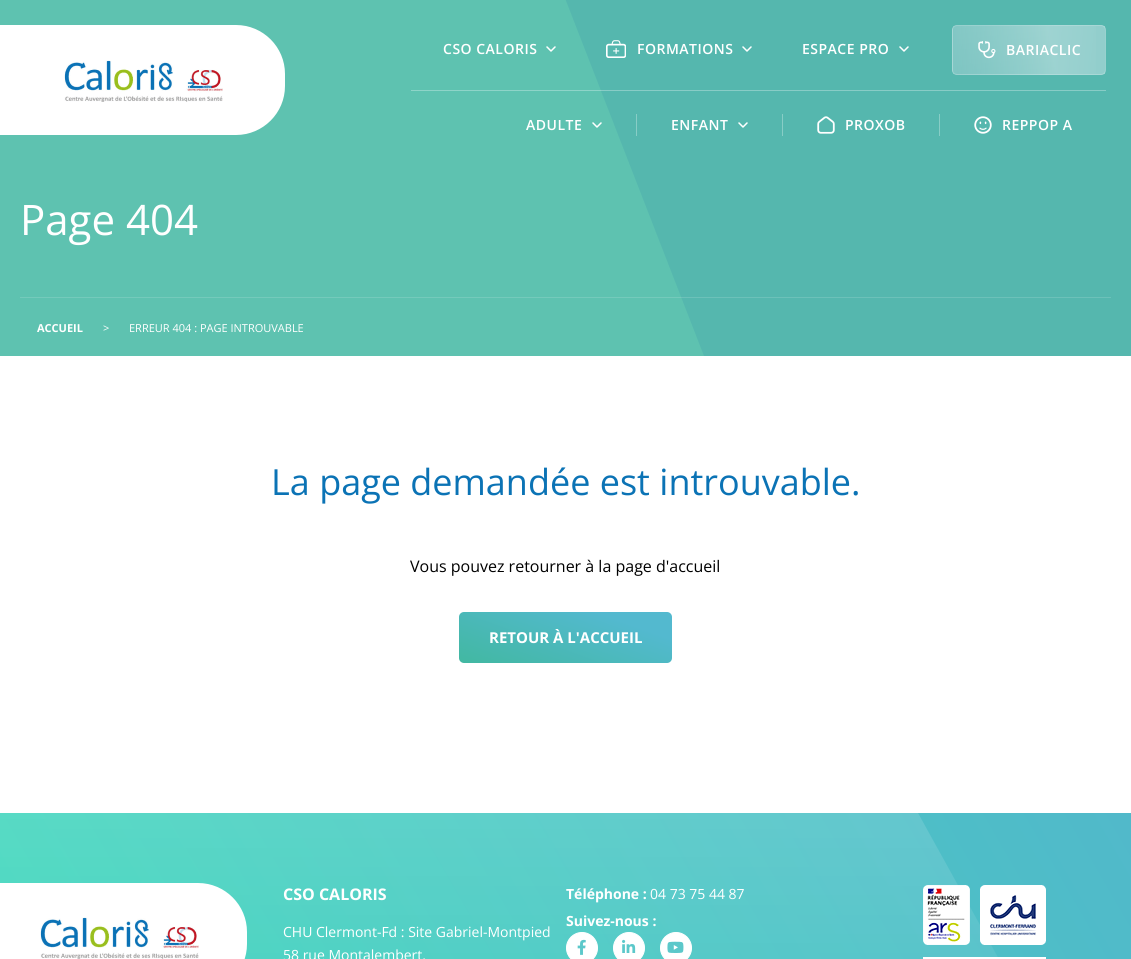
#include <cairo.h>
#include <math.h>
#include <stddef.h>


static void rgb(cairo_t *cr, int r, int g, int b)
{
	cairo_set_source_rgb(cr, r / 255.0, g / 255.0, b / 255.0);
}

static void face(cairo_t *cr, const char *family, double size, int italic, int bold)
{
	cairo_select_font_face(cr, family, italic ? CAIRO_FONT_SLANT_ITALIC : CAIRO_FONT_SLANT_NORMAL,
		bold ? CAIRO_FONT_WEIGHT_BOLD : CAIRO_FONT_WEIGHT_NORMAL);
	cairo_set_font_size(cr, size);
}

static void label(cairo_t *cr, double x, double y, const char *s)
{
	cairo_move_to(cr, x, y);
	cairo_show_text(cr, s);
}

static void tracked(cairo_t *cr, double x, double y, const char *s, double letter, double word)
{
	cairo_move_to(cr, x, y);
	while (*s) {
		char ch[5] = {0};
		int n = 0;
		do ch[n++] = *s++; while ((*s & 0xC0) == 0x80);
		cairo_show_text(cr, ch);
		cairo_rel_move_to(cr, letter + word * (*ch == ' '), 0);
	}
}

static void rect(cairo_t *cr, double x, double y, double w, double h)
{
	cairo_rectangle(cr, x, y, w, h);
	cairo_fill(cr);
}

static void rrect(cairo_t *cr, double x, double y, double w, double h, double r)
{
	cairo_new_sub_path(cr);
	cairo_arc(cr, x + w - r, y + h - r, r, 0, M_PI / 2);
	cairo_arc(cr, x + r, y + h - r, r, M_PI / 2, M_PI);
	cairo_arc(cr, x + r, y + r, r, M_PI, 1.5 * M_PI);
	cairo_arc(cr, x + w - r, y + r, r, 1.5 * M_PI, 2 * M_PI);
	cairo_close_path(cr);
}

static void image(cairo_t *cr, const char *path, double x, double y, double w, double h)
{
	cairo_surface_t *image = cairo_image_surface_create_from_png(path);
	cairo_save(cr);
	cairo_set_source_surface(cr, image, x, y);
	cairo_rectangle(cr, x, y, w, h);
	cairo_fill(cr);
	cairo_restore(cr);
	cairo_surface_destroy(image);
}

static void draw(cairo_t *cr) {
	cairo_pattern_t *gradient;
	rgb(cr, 255, 255, 255);
	cairo_paint(cr);
	rgb(cr, 85, 183, 174);
	rect(cr, 565, 0, 566, 356);
	rgb(cr, 94, 194, 176);
	cairo_new_path(cr);
	cairo_move_to(cr, -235, -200);
	cairo_line_to(cr, -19, 356);
	cairo_line_to(cr, 704, 356);
	cairo_line_to(cr, 488, -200);
	cairo_close_path(cr);
	cairo_fill(cr);
	rgb(cr, 255, 255, 255);
	cairo_new_path(cr);
	cairo_move_to(cr, 0, 25);
	cairo_line_to(cr, 236, 25);
	cairo_curve_to(cr, 263, 25, 285, 47, 285, 74);
	cairo_line_to(cr, 285, 86);
	cairo_curve_to(cr, 285, 113, 263, 135, 236, 135);
	cairo_line_to(cr, 0, 135);
	cairo_close_path(cr);
	cairo_fill(cr);
	image(cr, "image0.png", 64, 60, 159, 42);
	face(cr, "Open Sans SemiBold", 14, 0, 0);
	tracked(cr, 443, 54, "CSO CALORIS", 0.5, 0);
	cairo_new_path(cr);
	cairo_move_to(cr, 547, 47);
	cairo_line_to(cr, 551, 51);
	cairo_line_to(cr, 555, 47);
	cairo_set_line_width(cr, 1.5);
	cairo_set_line_cap(cr, CAIRO_LINE_CAP_ROUND);
	cairo_set_line_join(cr, CAIRO_LINE_JOIN_ROUND);
	cairo_stroke(cr);
	image(cr, "image1.png", 606, 40, 20, 18);
	tracked(cr, 637, 54, "FORMATIONS", 0.5, 0);
	cairo_new_path(cr);
	cairo_move_to(cr, 743, 47);
	cairo_line_to(cr, 747, 51);
	cairo_line_to(cr, 751, 47);
	cairo_stroke(cr);
	tracked(cr, 802, 54, "ESPACE PRO", 0.5, 0);
	cairo_new_path(cr);
	cairo_move_to(cr, 900, 47);
	cairo_line_to(cr, 904, 51);
	cairo_line_to(cr, 908, 47);
	cairo_stroke(cr);
	rgb(cr, 79, 176, 172);
	rrect(cr, 952, 25, 154, 50, 5);
	cairo_fill(cr);
	cairo_save(cr);
	rrect(cr, 952, 25, 154, 50, 5);
	cairo_clip(cr);
	gradient = cairo_pattern_create_linear(1107, -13, 951, 17);
	cairo_pattern_add_color_stop_rgba(gradient, 0.36, 0.573, 0.808, 0.8, 1);
	cairo_pattern_add_color_stop_rgba(gradient, 0.97, 0.31, 0.69, 0.675, 1);
	cairo_set_source(cr, gradient);
	cairo_pattern_destroy(gradient);
	rect(cr, 953, 25, 152, 1);
	gradient = cairo_pattern_create_linear(955, 35, 799, 65);
	cairo_pattern_add_color_stop_rgba(gradient, 0.36, 0.573, 0.808, 0.8, 1);
	cairo_pattern_add_color_stop_rgba(gradient, 0.97, 0.31, 0.69, 0.675, 1);
	cairo_set_source(cr, gradient);
	cairo_pattern_destroy(gradient);
	rect(cr, 952, 26, 1, 48);
	cairo_restore(cr);
	gradient = cairo_pattern_create_linear(1107, 35, 951, 65);
	cairo_pattern_add_color_stop_rgba(gradient, 0.36, 1, 1, 1, 0.38);
	cairo_pattern_add_color_stop_rgba(gradient, 0.97, 1, 1, 1, 0);
	cairo_set_source(cr, gradient);
	cairo_pattern_destroy(gradient);
	rect(cr, 954, 26, 151, 48);
	cairo_save(cr);
	rrect(cr, 952, 25, 154, 50, 5);
	cairo_clip(cr);
	gradient = cairo_pattern_create_linear(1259, 35, 1103, 65);
	cairo_pattern_add_color_stop_rgba(gradient, 0.36, 0.573, 0.808, 0.8, 1);
	cairo_pattern_add_color_stop_rgba(gradient, 0.97, 0.31, 0.69, 0.675, 1);
	cairo_set_source(cr, gradient);
	cairo_pattern_destroy(gradient);
	rect(cr, 1105, 26, 1, 48);
	gradient = cairo_pattern_create_linear(1107, 83, 951, 113);
	cairo_pattern_add_color_stop_rgba(gradient, 0.36, 0.573, 0.808, 0.8, 1);
	cairo_pattern_add_color_stop_rgba(gradient, 0.97, 0.31, 0.69, 0.675, 1);
	cairo_set_source(cr, gradient);
	cairo_pattern_destroy(gradient);
	rect(cr, 953, 74, 152, 1);
	gradient = cairo_pattern_create_linear(951, -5.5, 1107, 10);
	cairo_pattern_add_color_stop_rgba(gradient, 0.03, 1, 1, 1, 0.28);
	cairo_pattern_add_color_stop_rgba(gradient, 1, 1, 1, 1, 0);
	cairo_set_source(cr, gradient);
	cairo_pattern_destroy(gradient);
	rect(cr, 953, 25, 141, 1);
	cairo_restore(cr);
	gradient = cairo_pattern_create_linear(951, 42, 1107, 58);
	cairo_pattern_add_color_stop_rgba(gradient, 0.03, 1, 1, 1, 0.28);
	cairo_pattern_add_color_stop_rgba(gradient, 1, 1, 1, 1, 0);
	cairo_set_source(cr, gradient);
	cairo_pattern_destroy(gradient);
	rect(cr, 953, 26, 143, 48);
	cairo_save(cr);
	rrect(cr, 952, 25, 154, 50, 5);
	cairo_clip(cr);
	gradient = cairo_pattern_create_linear(1103, 42, 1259, 58);
	cairo_pattern_add_color_stop_rgba(gradient, 0.03, 1, 1, 1, 0.28);
	cairo_pattern_add_color_stop_rgba(gradient, 1, 1, 1, 1, 0);
	cairo_set_source(cr, gradient);
	cairo_pattern_destroy(gradient);
	rect(cr, 1105, 26, 1, 48);
	gradient = cairo_pattern_create_linear(951, 90, 1107, 106);
	cairo_pattern_add_color_stop_rgba(gradient, 0.03, 1, 1, 1, 0.28);
	cairo_pattern_add_color_stop_rgba(gradient, 1, 1, 1, 1, 0);
	cairo_set_source(cr, gradient);
	cairo_pattern_destroy(gradient);
	rect(cr, 953, 74, 152, 1);
	cairo_restore(cr);
	rrect(cr, 952.5, 25.5, 153, 49, 4.5);
	cairo_set_source_rgba(cr, 1, 1, 1, 0.19);
	cairo_set_line_width(cr, 1);
	cairo_set_line_cap(cr, CAIRO_LINE_CAP_BUTT);
	cairo_set_line_join(cr, CAIRO_LINE_JOIN_MITER);
	cairo_stroke(cr);
	image(cr, "image2.png", 978, 41, 18, 18);
	rgb(cr, 255, 255, 255);
	tracked(cr, 1006, 55, "BARIACLIC", 0.5, 0);
	cairo_set_source_rgba(cr, 1, 1, 1, 0.3);
	rect(cr, 411, 90, 695, 1);
	rgb(cr, 136, 205, 198);
	rect(cr, 636, 114, 1, 22);
	rgb(cr, 255, 255, 255);
	tracked(cr, 526, 130, "ADULTE", 0.5, 0);
	cairo_new_path(cr);
	cairo_move_to(cr, 593, 123);
	cairo_line_to(cr, 597, 127);
	cairo_line_to(cr, 601, 123);
	cairo_set_line_width(cr, 1.5);
	cairo_set_line_cap(cr, CAIRO_LINE_CAP_ROUND);
	cairo_set_line_join(cr, CAIRO_LINE_JOIN_ROUND);
	cairo_stroke(cr);
	rgb(cr, 136, 205, 198);
	rect(cr, 782, 114, 1, 22);
	rgb(cr, 255, 255, 255);
	tracked(cr, 671, 130, "ENFANT", 0.5, 0);
	cairo_new_path(cr);
	cairo_move_to(cr, 739, 123);
	cairo_line_to(cr, 743, 127);
	cairo_line_to(cr, 747, 123);
	cairo_stroke(cr);
	rgb(cr, 136, 205, 198);
	rect(cr, 939, 114, 1, 22);
	image(cr, "image3.png", 817, 116, 18, 18);
	rgb(cr, 255, 255, 255);
	tracked(cr, 845, 130, "PROXOB", 0.5, 0);
	image(cr, "image4.png", 974, 116, 18, 18);
	tracked(cr, 1002, 130, "REPPOP A", 0.5, 0);
	face(cr, "Open Sans", 42, 0, 0);
	label(cr, 20, 235, "Page 404");
	cairo_set_source_rgba(cr, 1, 1, 1, 0.14);
	rect(cr, 20, 297, 1091, 1);
	face(cr, "Open Sans", 11, 0, 1);
	rgb(cr, 255, 255, 255);
	label(cr, 37, 332, "ACCUEIL");
	face(cr, "Open Sans", 11, 0, 0);
	label(cr, 103, 332, ">");
	label(cr, 129, 332, "ERREUR 404 : PAGE INTROUVABLE");
	face(cr, "Open Sans", 36, 0, 0);
	rgb(cr, 11, 115, 181);
	label(cr, 271, 495, "La page demandée est introuvable.");
	face(cr, "Open Sans", 16, 0, 0);
	rgb(cr, 0, 0, 0);
	label(cr, 410, 572, "Vous pouvez retourner à la page d'accueil");
	gradient = cairo_pattern_create_linear(545, 694, 586, 581);
	cairo_pattern_add_color_stop_rgba(gradient, 0.01, 0.259, 0.722, 0.635, 1);
	cairo_pattern_add_color_stop_rgba(gradient, 0.79, 0.325, 0.725, 0.812, 1);
	cairo_set_source(cr, gradient);
	cairo_pattern_destroy(gradient);
	rrect(cr, 459, 612, 213, 51, 5);
	cairo_fill(cr);
	face(cr, "Open Sans", 15, 0, 1);
	rgb(cr, 255, 255, 255);
	label(cr, 489, 643, "RETOUR À L'ACCUEIL");
	gradient = cairo_pattern_create_linear(1058, 687, 73, 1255);
	cairo_pattern_add_color_stop_rgba(gradient, 0, 0.318, 0.725, 0.792, 1);
	cairo_pattern_add_color_stop_rgba(gradient, 1, 0.235, 0.851, 0.729, 1);
	cairo_set_source(cr, gradient);
	cairo_pattern_destroy(gradient);
	rect(cr, 0, 813, 1131, 146);
	gradient = cairo_pattern_create_linear(511, 813, 511, 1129);
	cairo_pattern_add_color_stop_rgba(gradient, 0, 1, 1, 1, 0.13);
	cairo_pattern_add_color_stop_rgba(gradient, 1, 1, 1, 1, 0);
	cairo_set_source(cr, gradient);
	cairo_pattern_destroy(gradient);
	cairo_new_path(cr);
	cairo_move_to(cr, 103, 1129);
	cairo_line_to(cr, -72, 813);
	cairo_line_to(cr, 918, 813);
	cairo_line_to(cr, 1093, 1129);
	cairo_close_path(cr);
	cairo_fill(cr);
	rgb(cr, 255, 255, 255);
	cairo_new_path(cr);
	cairo_move_to(cr, -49, 883);
	cairo_line_to(cr, 198, 883);
	cairo_curve_to(cr, 225, 883, 247, 905, 247, 932);
	cairo_line_to(cr, 247, 944);
	cairo_curve_to(cr, 247, 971, 225, 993, 198, 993);
	cairo_line_to(cr, -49, 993);
	cairo_close_path(cr);
	cairo_fill(cr);
	image(cr, "image0.png", 40, 917, 159, 42);
	face(cr, "Open Sans", 16, 0, 1);
	label(cr, 283, 900, "CSO CALORIS");
	face(cr, "Open Sans", 14, 0, 0);
	label(cr, 283, 937, "CHU Clermont-Fd : Site Gabriel-Montpied");
	label(cr, 283, 960, "58 rue Montalembert,");
	face(cr, "Open Sans", 14, 0, 1);
	label(cr, 566, 899, "Téléphone :");
	face(cr, "Open Sans", 14, 0, 0);
	label(cr, 650, 899, "04 73 75 44 87");
	face(cr, "Open Sans", 14, 0, 1);
	label(cr, 566, 926, "Suivez-nous :");
	cairo_new_path(cr);
	cairo_arc(cr, 582, 948, 15.5, 0, 2 * M_PI);
	cairo_fill_preserve(cr);
	cairo_set_line_width(cr, 1);
	cairo_set_line_cap(cr, CAIRO_LINE_CAP_BUTT);
	cairo_set_line_join(cr, CAIRO_LINE_JOIN_MITER);
	cairo_stroke(cr);
	image(cr, "image5.png", 577, 939, 9, 16);
	cairo_arc(cr, 629, 948, 15.5, 0, 2 * M_PI);
	cairo_fill_preserve(cr);
	cairo_stroke(cr);
	image(cr, "image6.png", 622, 939, 14, 14);
	cairo_arc(cr, 676, 948, 15.5, 0, 2 * M_PI);
	cairo_fill_preserve(cr);
	cairo_stroke(cr);
	image(cr, "image7.png", 667, 941, 17, 12);
	image(cr, "image8.png", 923, 885, 47, 60);
	image(cr, "image9.png", 980, 885, 66, 60);
	rect(cr, 923, 957, 123, 2);
}

int main(void) {
	cairo_surface_t *surface = cairo_image_surface_create(CAIRO_FORMAT_RGB24, 1131, 959);
	cairo_t *cr = cairo_create(surface);
	cairo_font_options_t *options = cairo_font_options_create();
	cairo_font_options_set_hint_metrics(options, CAIRO_HINT_METRICS_OFF);
	cairo_font_options_set_hint_style(options, CAIRO_HINT_STYLE_NONE);
	cairo_set_font_options(cr, options);
	cairo_set_miter_limit(cr, 4);
	draw(cr);
	cairo_surface_write_to_png(surface, "render.png");
	cairo_font_options_destroy(options);
	cairo_destroy(cr);
	cairo_surface_destroy(surface);
	return 0;
}
